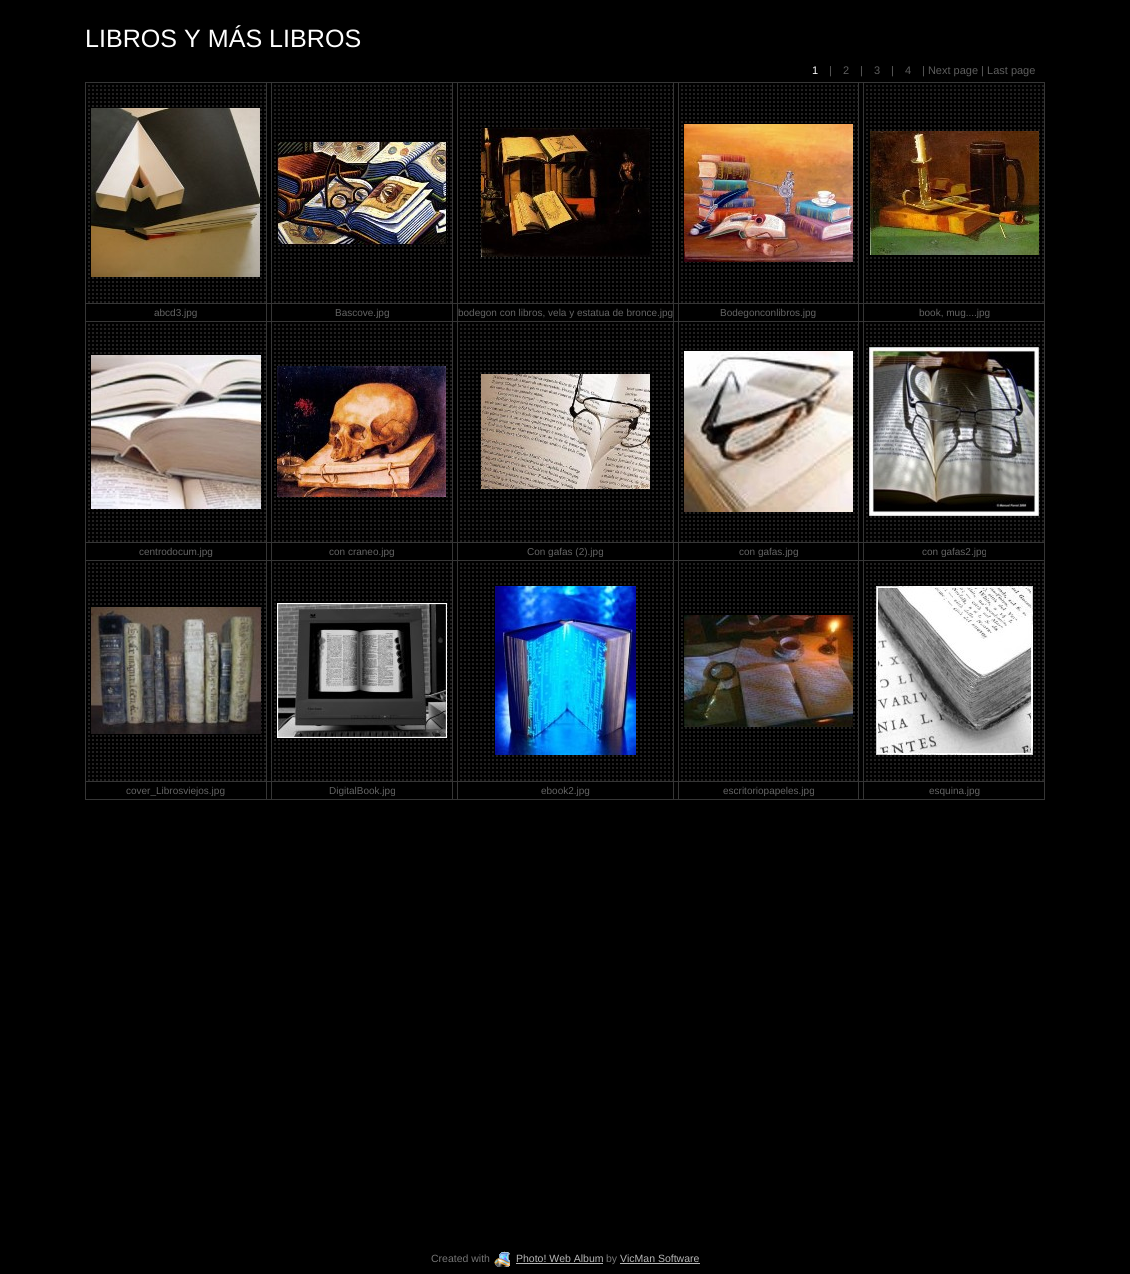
#include <cairo.h>
#include <math.h>
#include <stddef.h>


static void rgb(cairo_t *cr, int r, int g, int b)
{
	cairo_set_source_rgb(cr, r / 255.0, g / 255.0, b / 255.0);
}

static void face(cairo_t *cr, const char *family, double size, int italic, int bold)
{
	cairo_select_font_face(cr, family, italic ? CAIRO_FONT_SLANT_ITALIC : CAIRO_FONT_SLANT_NORMAL,
		bold ? CAIRO_FONT_WEIGHT_BOLD : CAIRO_FONT_WEIGHT_NORMAL);
	cairo_set_font_size(cr, size);
}

static void label(cairo_t *cr, double x, double y, const char *s)
{
	cairo_move_to(cr, x, y);
	cairo_show_text(cr, s);
}

static void rect(cairo_t *cr, double x, double y, double w, double h)
{
	cairo_rectangle(cr, x, y, w, h);
	cairo_fill(cr);
}

static void image(cairo_t *cr, const char *path, double x, double y, double w, double h)
{
	cairo_surface_t *image = cairo_image_surface_create_from_png(path);
	cairo_save(cr);
	cairo_set_source_surface(cr, image, x, y);
	cairo_rectangle(cr, x, y, w, h);
	cairo_fill(cr);
	cairo_restore(cr);
	cairo_surface_destroy(image);
}

static void draw(cairo_t *cr) {
	rgb(cr, 0, 0, 0);
	cairo_paint(cr);
	face(cr, "Liberation Sans", 25.1, 0, 0);
	rgb(cr, 255, 255, 255);
	label(cr, 85, 47, "LIBROS Y MÁS LIBROS");
	face(cr, "Liberation Sans", 11, 0, 0);
	label(cr, 812, 74, "1");
	rgb(cr, 93, 93, 93);
	label(cr, 829, 74, "|");
	label(cr, 843, 74, "2");
	label(cr, 860, 74, "|");
	label(cr, 874, 74, "3");
	label(cr, 891, 74, "|");
	label(cr, 905, 74, "4");
	label(cr, 922, 74, "| Next page | Last page");
	rgb(cr, 54, 54, 54);
	rect(cr, 81, 82, 964, 1);
	rgb(cr, 0, 0, 0);
	rect(cr, 81, 82, 4, 1);
	image(cr, "image0.png", 86, 85, 180, 218);
	rgb(cr, 54, 54, 54);
	rect(cr, 266, 83, 1, 220);
	rect(cr, 85, 83, 1, 220);
	image(cr, "image1.png", 91, 108, 169, 169);
	cairo_rectangle(cr, 85.5, 303.5, 181, 18);
	cairo_set_line_width(cr, 1);
	cairo_stroke(cr);
	face(cr, "Liberation Sans", 10, 0, 0);
	rgb(cr, 100, 100, 100);
	label(cr, 154, 316, "abcd3.jpg");
	image(cr, "image0.png", 272, 85, 180, 218);
	rgb(cr, 54, 54, 54);
	rect(cr, 452, 83, 1, 220);
	rect(cr, 271, 83, 1, 220);
	image(cr, "image2.png", 277, 141, 170, 104);
	rect(cr, 267, 303, 4, 1);
	rect(cr, 267, 321, 4, 1);
	cairo_rectangle(cr, 271.5, 303.5, 181, 18);
	cairo_stroke(cr);
	rgb(cr, 100, 100, 100);
	label(cr, 335, 316, "Bascove.jpg");
	image(cr, "image3.png", 458, 85, 215, 218);
	rgb(cr, 54, 54, 54);
	rect(cr, 673, 83, 1, 220);
	rect(cr, 457, 83, 1, 220);
	image(cr, "image4.png", 481, 128, 169, 129);
	rect(cr, 453, 303, 4, 1);
	rect(cr, 453, 321, 4, 1);
	cairo_rectangle(cr, 457.5, 303.5, 216, 18);
	cairo_stroke(cr);
	rgb(cr, 100, 100, 100);
	label(cr, 458, 316, "bodegon con libros, vela y estatua de bronce.jpg");
	image(cr, "image5.png", 679, 85, 179, 218);
	rgb(cr, 54, 54, 54);
	rect(cr, 858, 83, 1, 220);
	rect(cr, 678, 83, 1, 220);
	image(cr, "image6.png", 684, 124, 169, 138);
	rect(cr, 674, 303, 4, 1);
	rect(cr, 674, 321, 4, 1);
	cairo_rectangle(cr, 678.5, 303.5, 180, 18);
	cairo_stroke(cr);
	rgb(cr, 100, 100, 100);
	label(cr, 720, 316, "Bodegonconlibros.jpg");
	image(cr, "image0.png", 864, 85, 180, 218);
	rgb(cr, 54, 54, 54);
	rect(cr, 1044, 83, 1, 220);
	rect(cr, 863, 83, 1, 220);
	image(cr, "image7.png", 870, 131, 169, 124);
	rect(cr, 859, 303, 4, 1);
	rect(cr, 859, 321, 4, 1);
	cairo_rectangle(cr, 863.5, 303.5, 181, 18);
	cairo_stroke(cr);
	rgb(cr, 100, 100, 100);
	label(cr, 919, 316, "book, mug....jpg");
	image(cr, "image0.png", 86, 324, 180, 218);
	rgb(cr, 54, 54, 54);
	rect(cr, 266, 322, 1, 220);
	rect(cr, 85, 322, 1, 220);
	image(cr, "image8.png", 91, 355, 170, 154);
	cairo_rectangle(cr, 85.5, 542.5, 181, 18);
	cairo_stroke(cr);
	rgb(cr, 100, 100, 100);
	label(cr, 139, 555, "centrodocum.jpg");
	image(cr, "image0.png", 272, 324, 180, 218);
	rgb(cr, 54, 54, 54);
	rect(cr, 452, 322, 1, 220);
	rect(cr, 271, 322, 1, 220);
	image(cr, "image9.png", 277, 366, 169, 131);
	rect(cr, 267, 542, 4, 1);
	rect(cr, 267, 560, 4, 1);
	cairo_rectangle(cr, 271.5, 542.5, 181, 18);
	cairo_stroke(cr);
	rgb(cr, 100, 100, 100);
	label(cr, 329, 555, "con craneo.jpg");
	image(cr, "image3.png", 458, 324, 215, 218);
	rgb(cr, 54, 54, 54);
	rect(cr, 673, 322, 1, 220);
	rect(cr, 457, 322, 1, 220);
	image(cr, "image10.png", 481, 374, 169, 115);
	rect(cr, 453, 542, 4, 1);
	rect(cr, 453, 560, 4, 1);
	cairo_rectangle(cr, 457.5, 542.5, 216, 18);
	cairo_stroke(cr);
	rgb(cr, 100, 100, 100);
	label(cr, 527, 555, "Con gafas (2).jpg");
	image(cr, "image5.png", 679, 324, 179, 218);
	rgb(cr, 54, 54, 54);
	rect(cr, 858, 322, 1, 220);
	rect(cr, 678, 322, 1, 220);
	image(cr, "image11.png", 684, 351, 169, 161);
	rect(cr, 674, 542, 4, 1);
	rect(cr, 674, 560, 4, 1);
	cairo_rectangle(cr, 678.5, 542.5, 180, 18);
	cairo_stroke(cr);
	rgb(cr, 100, 100, 100);
	label(cr, 739, 555, "con gafas.jpg");
	image(cr, "image0.png", 864, 324, 180, 218);
	rgb(cr, 54, 54, 54);
	rect(cr, 1044, 322, 1, 220);
	rect(cr, 863, 322, 1, 220);
	image(cr, "image12.png", 869, 347, 170, 169);
	rect(cr, 859, 542, 4, 1);
	rect(cr, 859, 560, 4, 1);
	cairo_rectangle(cr, 863.5, 542.5, 181, 18);
	cairo_stroke(cr);
	rgb(cr, 100, 100, 100);
	label(cr, 922, 555, "con gafas2.jpg");
	image(cr, "image0.png", 86, 563, 180, 218);
	rgb(cr, 54, 54, 54);
	rect(cr, 266, 561, 1, 220);
	rect(cr, 85, 561, 1, 220);
	image(cr, "image13.png", 91, 607, 170, 127);
	cairo_rectangle(cr, 85.5, 781.5, 181, 18);
	cairo_stroke(cr);
	rgb(cr, 100, 100, 100);
	label(cr, 126, 794, "cover_Librosviejos.jpg");
	image(cr, "image0.png", 272, 563, 180, 218);
	rgb(cr, 54, 54, 54);
	rect(cr, 452, 561, 1, 220);
	rect(cr, 271, 561, 1, 220);
	image(cr, "image14.png", 277, 603, 170, 135);
	rect(cr, 267, 781, 4, 1);
	rect(cr, 267, 799, 4, 1);
	cairo_rectangle(cr, 271.5, 781.5, 181, 18);
	cairo_stroke(cr);
	rgb(cr, 100, 100, 100);
	label(cr, 329, 794, "DigitalBook.jpg");
	image(cr, "image3.png", 458, 563, 215, 218);
	rgb(cr, 54, 54, 54);
	rect(cr, 673, 561, 1, 220);
	rect(cr, 457, 561, 1, 220);
	image(cr, "image15.png", 495, 586, 141, 169);
	rect(cr, 453, 781, 4, 1);
	rect(cr, 453, 799, 4, 1);
	cairo_rectangle(cr, 457.5, 781.5, 216, 18);
	cairo_stroke(cr);
	rgb(cr, 100, 100, 100);
	label(cr, 541, 794, "ebook2.jpg");
	image(cr, "image5.png", 679, 563, 179, 218);
	rgb(cr, 54, 54, 54);
	rect(cr, 858, 561, 1, 220);
	rect(cr, 678, 561, 1, 220);
	image(cr, "image16.png", 684, 615, 169, 112);
	rect(cr, 674, 781, 4, 1);
	rect(cr, 674, 799, 4, 1);
	cairo_rectangle(cr, 678.5, 781.5, 180, 18);
	cairo_stroke(cr);
	rgb(cr, 100, 100, 100);
	label(cr, 723, 794, "escritoriopapeles.jpg");
	image(cr, "image0.png", 864, 563, 180, 218);
	rgb(cr, 54, 54, 54);
	rect(cr, 1044, 561, 1, 220);
	rect(cr, 863, 561, 1, 220);
	image(cr, "image17.png", 876, 586, 157, 169);
	rect(cr, 859, 781, 4, 1);
	rect(cr, 859, 799, 4, 1);
	cairo_rectangle(cr, 863.5, 781.5, 181, 18);
	cairo_stroke(cr);
	rgb(cr, 100, 100, 100);
	label(cr, 929, 794, "esquina.jpg");
	face(cr, "Liberation Sans", 10.5, 0, 0);
	rgb(cr, 116, 116, 116);
	label(cr, 431, 1262, "Created with");
	image(cr, "image18.png", 494, 1251, 16, 16);
	rgb(cr, 183, 183, 183);
	label(cr, 516, 1262, "Photo! Web Album");
	rect(cr, 516, 1263, 87, 1);
	rgb(cr, 116, 116, 116);
	label(cr, 606, 1262, "by");
	rgb(cr, 183, 183, 183);
	label(cr, 620, 1262, "VicMan Software");
	rect(cr, 620, 1263, 80, 1);
}

int main(void) {
	cairo_surface_t *surface = cairo_image_surface_create(CAIRO_FORMAT_RGB24, 1130, 1274);
	cairo_t *cr = cairo_create(surface);
	cairo_font_options_t *options = cairo_font_options_create();
	cairo_font_options_set_hint_metrics(options, CAIRO_HINT_METRICS_OFF);
	cairo_font_options_set_hint_style(options, CAIRO_HINT_STYLE_NONE);
	cairo_set_font_options(cr, options);
	cairo_set_miter_limit(cr, 4);
	draw(cr);
	cairo_surface_write_to_png(surface, "render.png");
	cairo_font_options_destroy(options);
	cairo_destroy(cr);
	cairo_surface_destroy(surface);
	return 0;
}
